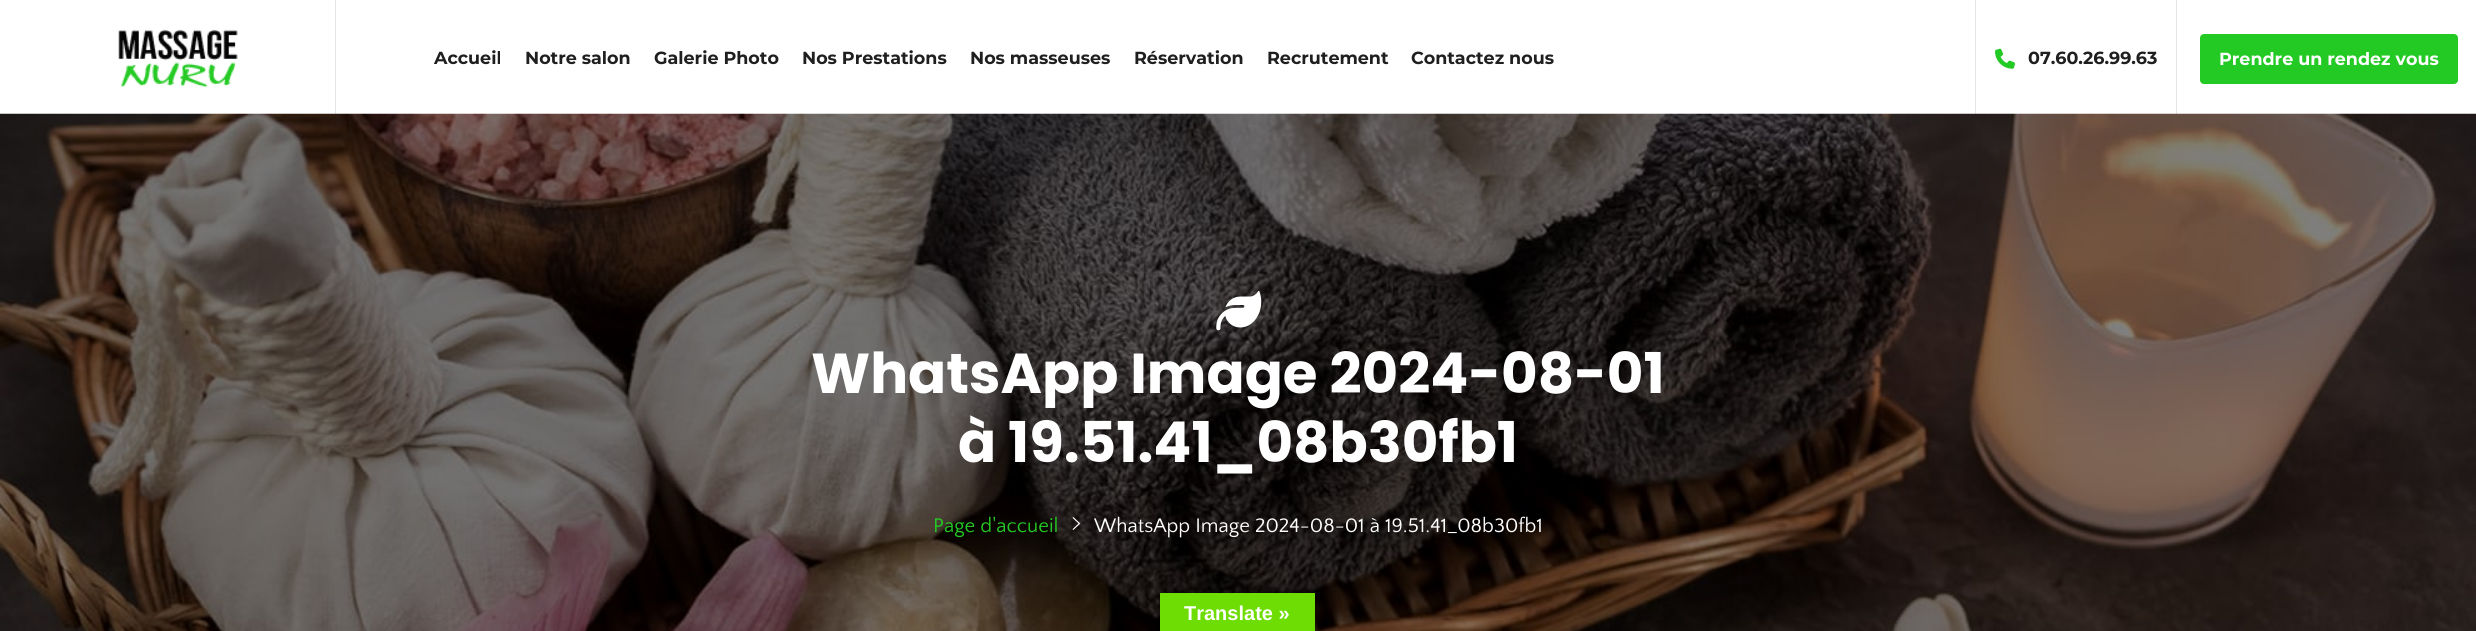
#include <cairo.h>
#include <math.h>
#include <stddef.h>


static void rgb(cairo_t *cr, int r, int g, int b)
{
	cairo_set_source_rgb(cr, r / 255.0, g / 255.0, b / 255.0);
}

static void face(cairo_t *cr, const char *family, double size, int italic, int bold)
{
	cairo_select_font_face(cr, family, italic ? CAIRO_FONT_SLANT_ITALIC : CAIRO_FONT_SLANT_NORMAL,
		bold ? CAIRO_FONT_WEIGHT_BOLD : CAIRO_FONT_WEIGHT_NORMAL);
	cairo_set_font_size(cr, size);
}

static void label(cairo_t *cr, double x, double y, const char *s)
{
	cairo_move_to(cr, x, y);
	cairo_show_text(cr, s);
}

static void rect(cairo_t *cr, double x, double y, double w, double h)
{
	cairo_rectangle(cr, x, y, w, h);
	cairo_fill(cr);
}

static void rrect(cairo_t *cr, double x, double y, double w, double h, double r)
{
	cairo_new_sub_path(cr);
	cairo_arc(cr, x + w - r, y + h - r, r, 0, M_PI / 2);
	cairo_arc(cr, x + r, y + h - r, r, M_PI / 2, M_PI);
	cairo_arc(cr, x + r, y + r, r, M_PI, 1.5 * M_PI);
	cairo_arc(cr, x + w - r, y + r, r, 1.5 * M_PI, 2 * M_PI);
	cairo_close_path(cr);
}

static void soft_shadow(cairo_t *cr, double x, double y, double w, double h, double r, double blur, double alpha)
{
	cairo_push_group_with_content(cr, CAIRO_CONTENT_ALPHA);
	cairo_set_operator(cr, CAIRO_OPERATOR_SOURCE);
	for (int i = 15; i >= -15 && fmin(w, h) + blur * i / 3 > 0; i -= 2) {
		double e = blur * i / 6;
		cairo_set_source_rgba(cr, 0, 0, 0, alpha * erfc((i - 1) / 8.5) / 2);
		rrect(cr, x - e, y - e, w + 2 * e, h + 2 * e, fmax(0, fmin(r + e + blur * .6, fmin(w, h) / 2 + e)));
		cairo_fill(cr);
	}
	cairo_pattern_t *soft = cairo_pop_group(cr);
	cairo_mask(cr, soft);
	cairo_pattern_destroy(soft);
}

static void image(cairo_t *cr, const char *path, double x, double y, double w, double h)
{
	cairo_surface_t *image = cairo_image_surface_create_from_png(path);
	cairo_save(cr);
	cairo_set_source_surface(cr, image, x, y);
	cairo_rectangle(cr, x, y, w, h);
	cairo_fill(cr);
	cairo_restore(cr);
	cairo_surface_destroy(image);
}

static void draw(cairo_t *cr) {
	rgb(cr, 255, 255, 255);
	cairo_paint(cr);
	rgb(cr, 228, 228, 228);
	rect(cr, 335, 0, 1, 114);
	image(cr, "image0.png", 118, 29, 120, 59);
	face(cr, "Montserrat", 17.5, 0, 1);
	rgb(cr, 31, 31, 31);
	label(cr, 434, 64, "Accueil");
	label(cr, 525, 64, "Notre salon");
	label(cr, 654, 64, "Galerie Photo");
	label(cr, 802, 64, "Nos Prestations");
	label(cr, 970, 64, "Nos masseuses");
	label(cr, 1134, 64, "Réservation");
	label(cr, 1267, 64, "Recrutement");
	label(cr, 1411, 64, "Contactez nous");
	rgb(cr, 228, 228, 228);
	rect(cr, 2176, 0, 1, 114);
	rect(cr, 1975, 0, 1, 114);
	image(cr, "image1.png", 1995, 48, 20, 21);
	rgb(cr, 31, 31, 31);
	label(cr, 2028, 64, "07.60.26.99.63");
	rgb(cr, 36, 202, 36);
	rrect(cr, 2200, 34, 258, 50, 4);
	cairo_fill(cr);
	rgb(cr, 255, 255, 255);
	label(cr, 2219, 65, "Prendre un rendez vous");
	image(cr, "image2.png", 0, 113, 2476, 518);
	image(cr, "image3.png", 1216, 291, 46, 40);
	face(cr, "Poppins", 56.25, 0, 1);
	label(cr, 811, 393, "WhatsApp Image 2024-08-01");
	label(cr, 958, 462, "à 19.51.41_08b30fb1");
	face(cr, "Quattrocento Sans", 20.6, 0, 0);
	rgb(cr, 36, 202, 36);
	label(cr, 933, 532, "Page d'accueil");
	image(cr, "image4.png", 1072, 517, 9, 13);
	rgb(cr, 255, 255, 255);
	label(cr, 1094, 532, "WhatsApp Image 2024-08-01 à 19.51.41_08b30fb1");
	rgb(cr, 0, 0, 0);
	soft_shadow(cr, 1160, 593, 155, 38, 0, 5.5, 0.3);
	rgb(cr, 109, 221, 4);
	rect(cr, 1160, 593, 155, 38);
	face(cr, "Liberation Sans", 20, 0, 1);
	rgb(cr, 255, 255, 255);
	label(cr, 1184, 620, "Translate »");
}

int main(void) {
	cairo_surface_t *surface = cairo_image_surface_create(CAIRO_FORMAT_RGB24, 2476, 631);
	cairo_t *cr = cairo_create(surface);
	cairo_font_options_t *options = cairo_font_options_create();
	cairo_font_options_set_hint_metrics(options, CAIRO_HINT_METRICS_OFF);
	cairo_font_options_set_hint_style(options, CAIRO_HINT_STYLE_NONE);
	cairo_set_font_options(cr, options);
	cairo_set_miter_limit(cr, 4);
	draw(cr);
	cairo_surface_write_to_png(surface, "render.png");
	cairo_font_options_destroy(options);
	cairo_destroy(cr);
	cairo_surface_destroy(surface);
	return 0;
}
